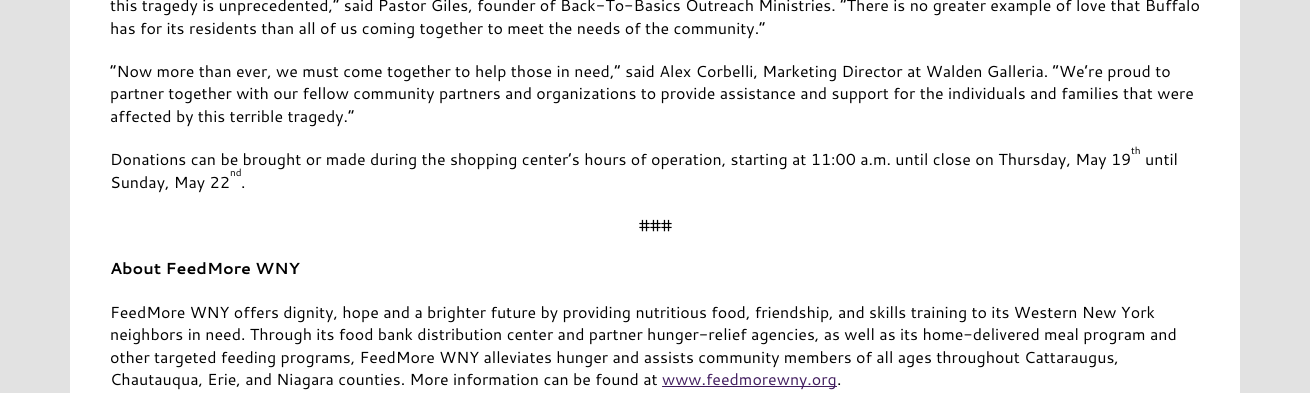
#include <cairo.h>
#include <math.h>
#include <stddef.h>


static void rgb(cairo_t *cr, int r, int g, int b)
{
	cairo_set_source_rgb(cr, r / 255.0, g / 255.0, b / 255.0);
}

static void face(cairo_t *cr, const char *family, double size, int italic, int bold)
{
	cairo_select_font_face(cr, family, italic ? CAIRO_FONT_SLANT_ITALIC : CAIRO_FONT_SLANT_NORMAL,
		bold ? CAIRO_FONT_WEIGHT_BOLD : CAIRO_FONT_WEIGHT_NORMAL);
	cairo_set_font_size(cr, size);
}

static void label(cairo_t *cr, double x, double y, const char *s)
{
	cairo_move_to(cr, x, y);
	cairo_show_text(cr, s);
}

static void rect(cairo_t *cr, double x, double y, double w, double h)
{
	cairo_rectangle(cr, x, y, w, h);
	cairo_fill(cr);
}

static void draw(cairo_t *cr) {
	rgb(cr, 226, 226, 226);
	cairo_paint(cr);
	rgb(cr, 255, 255, 255);
	rect(cr, 70, 0, 1170, 393);
	face(cr, "Cantarell", 16, 0, 0);
	rgb(cr, 0, 0, 0);
	label(cr, 110, 11, "this tragedy is unprecedented,” said Pastor Giles, founder of Back-To-Basics Outreach Ministries. “There is no greater example of love that Buffalo");
	label(cr, 110, 34, "has for its residents than all of us coming together to meet the needs of the community.”");
	label(cr, 110, 77, "“Now more than ever, we must come together to help those in need,” said Alex Corbelli, Marketing Director at Walden Galleria. “We’re proud to");
	label(cr, 110, 99, "partner together with our fellow community partners and organizations to provide assistance and support for the individuals and families that were");
	label(cr, 110, 122, "affected by this terrible tragedy.”");
	face(cr, "Cantarell", 10, 0, 0);
	label(cr, 1131, 154, "th");
	face(cr, "Cantarell", 16, 0, 0);
	label(cr, 110, 165, "Donations can be brought or made during the shopping center’s hours of operation, starting at 11:00 a.m. until close on Thursday, May 19");
	label(cr, 1145, 165, "until");
	face(cr, "Cantarell", 10, 0, 0);
	label(cr, 230, 176, "nd");
	face(cr, "Cantarell", 16, 0, 0);
	label(cr, 110, 188, "Sunday, May 22");
	label(cr, 241, 188, ".");
	label(cr, 639, 231, "###");
	face(cr, "Cantarell", 16, 0, 1);
	label(cr, 110, 274, "About FeedMore WNY");
	face(cr, "Cantarell", 16, 0, 0);
	label(cr, 110, 318, "FeedMore WNY offers dignity, hope and a brighter future by providing nutritious food, friendship, and skills training to its Western New York");
	label(cr, 110, 340, "neighbors in need. Through its food bank distribution center and partner hunger-relief agencies, as well as its home-delivered meal program and");
	label(cr, 110, 363, "other targeted feeding programs, FeedMore WNY alleviates hunger and assists community members of all ages throughout Cattaraugus,");
	label(cr, 110, 385, "Chautauqua, Erie, and Niagara counties. More information can be found at");
	rgb(cr, 65, 28, 94);
	rect(cr, 662, 386, 175, 1);
	label(cr, 662, 385, "www.feedmorewny.org");
	rgb(cr, 0, 0, 0);
	label(cr, 837, 385, ".");
}

int main(void) {
	cairo_surface_t *surface = cairo_image_surface_create(CAIRO_FORMAT_RGB24, 1310, 393);
	cairo_t *cr = cairo_create(surface);
	cairo_font_options_t *options = cairo_font_options_create();
	cairo_font_options_set_hint_metrics(options, CAIRO_HINT_METRICS_OFF);
	cairo_font_options_set_hint_style(options, CAIRO_HINT_STYLE_NONE);
	cairo_set_font_options(cr, options);
	cairo_set_miter_limit(cr, 4);
	draw(cr);
	cairo_surface_write_to_png(surface, "render.png");
	cairo_font_options_destroy(options);
	cairo_destroy(cr);
	cairo_surface_destroy(surface);
	return 0;
}
